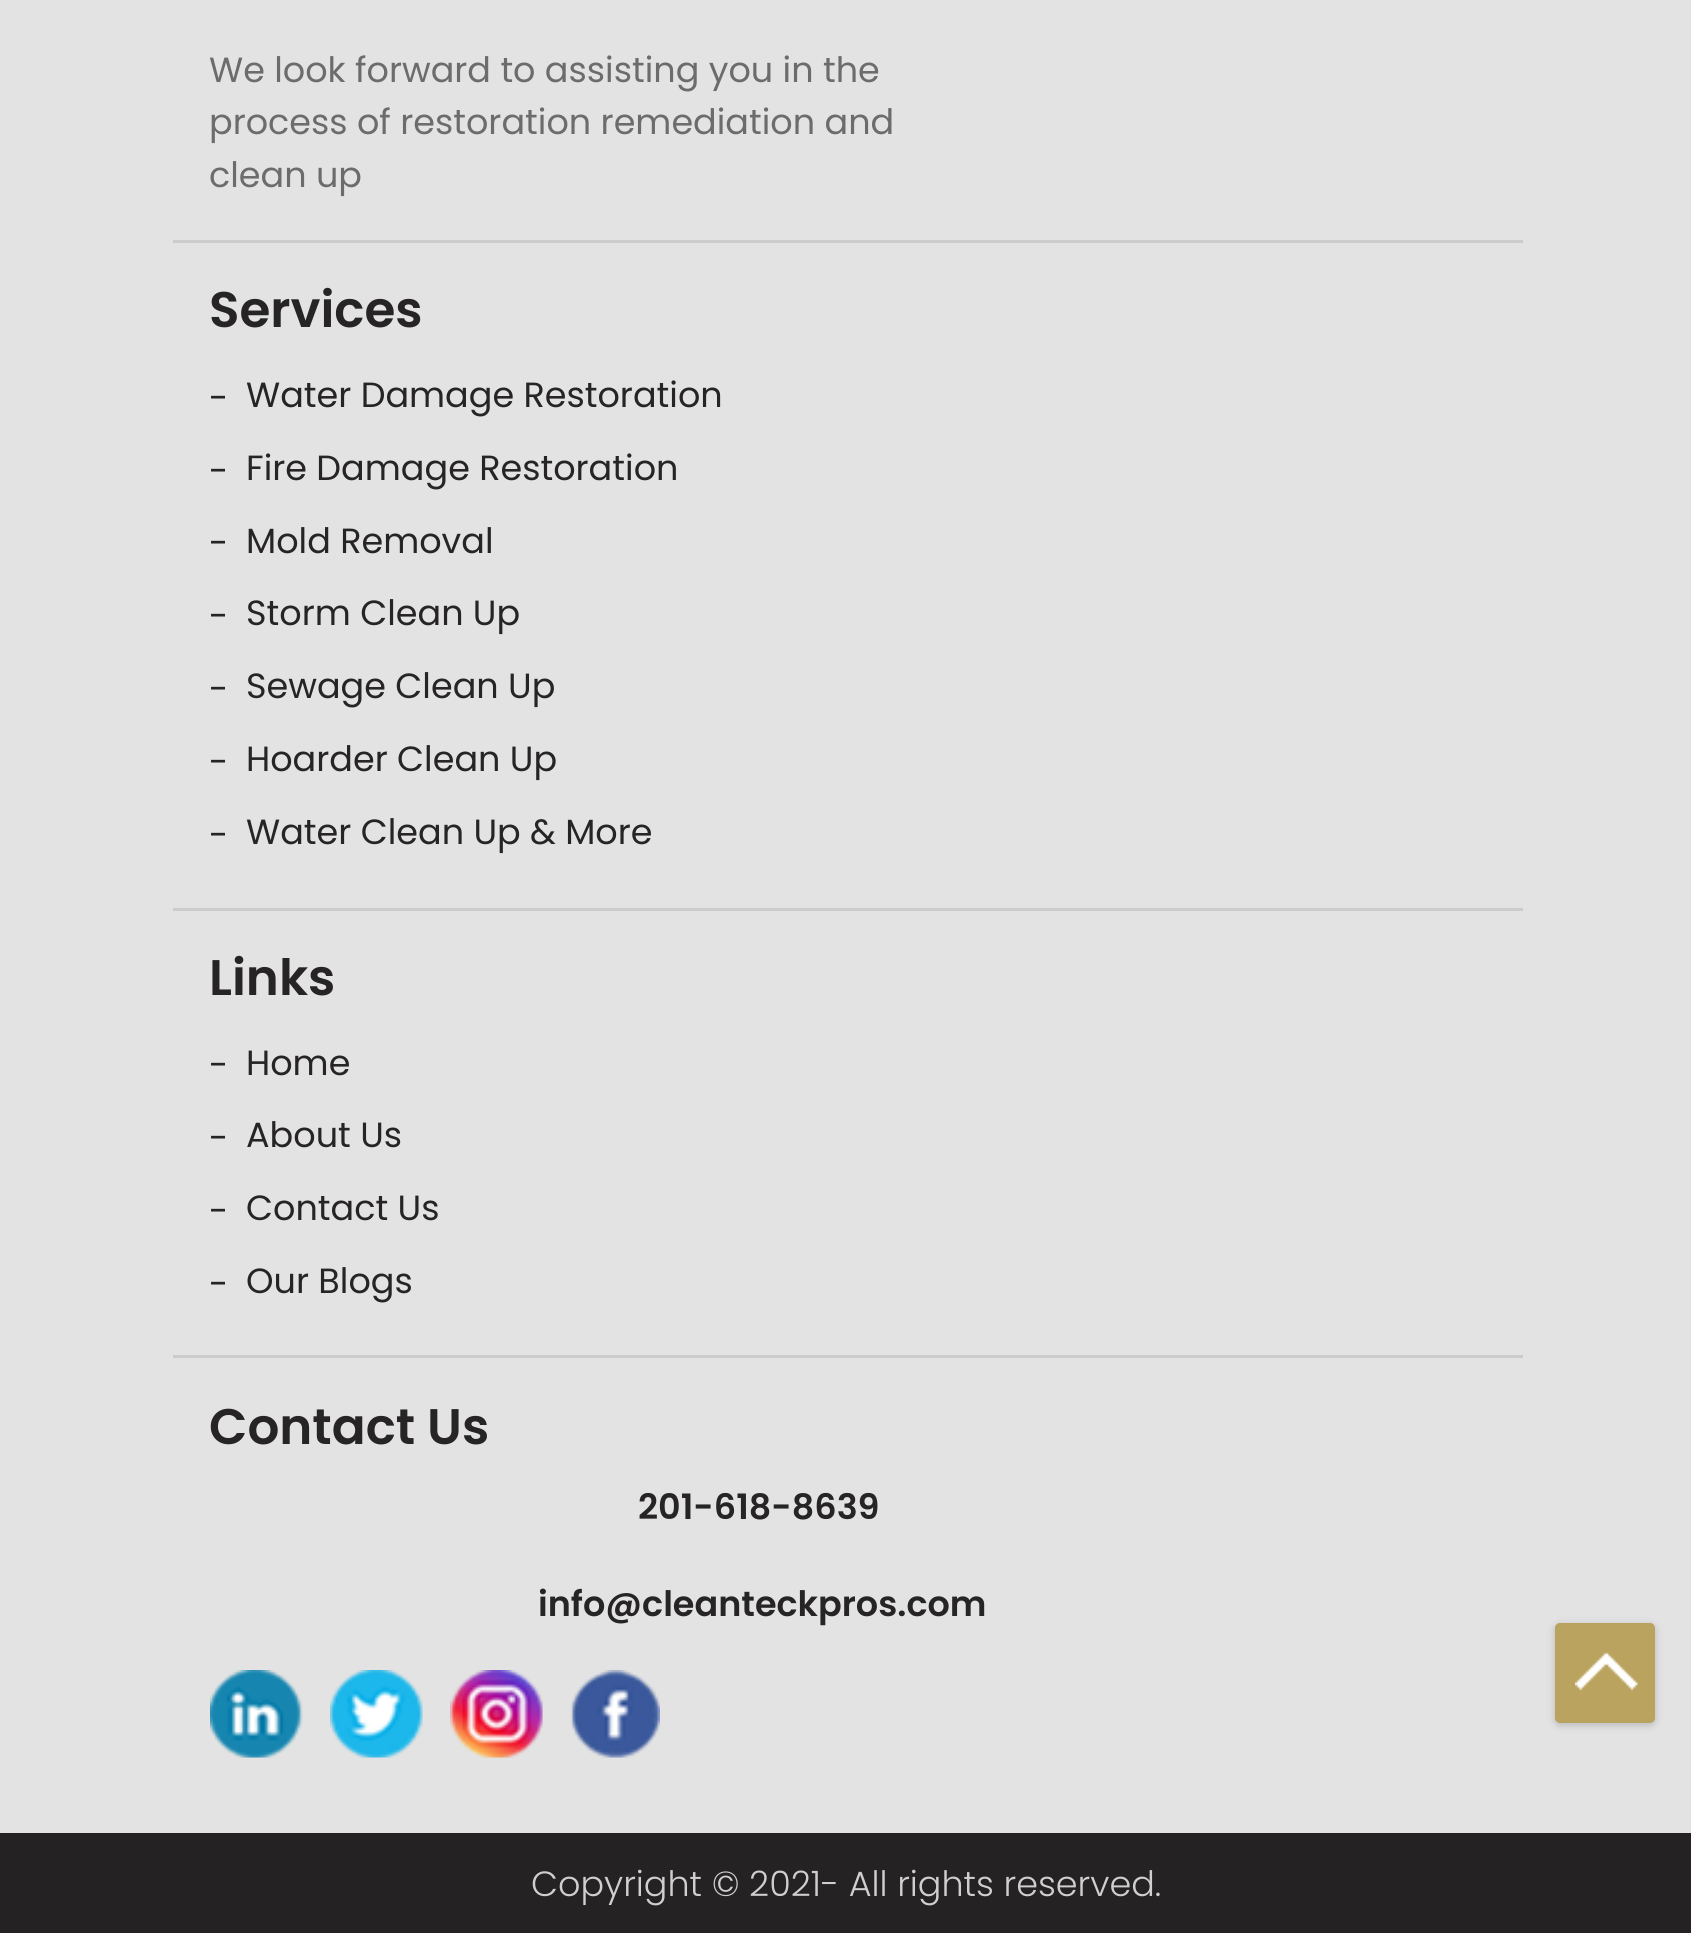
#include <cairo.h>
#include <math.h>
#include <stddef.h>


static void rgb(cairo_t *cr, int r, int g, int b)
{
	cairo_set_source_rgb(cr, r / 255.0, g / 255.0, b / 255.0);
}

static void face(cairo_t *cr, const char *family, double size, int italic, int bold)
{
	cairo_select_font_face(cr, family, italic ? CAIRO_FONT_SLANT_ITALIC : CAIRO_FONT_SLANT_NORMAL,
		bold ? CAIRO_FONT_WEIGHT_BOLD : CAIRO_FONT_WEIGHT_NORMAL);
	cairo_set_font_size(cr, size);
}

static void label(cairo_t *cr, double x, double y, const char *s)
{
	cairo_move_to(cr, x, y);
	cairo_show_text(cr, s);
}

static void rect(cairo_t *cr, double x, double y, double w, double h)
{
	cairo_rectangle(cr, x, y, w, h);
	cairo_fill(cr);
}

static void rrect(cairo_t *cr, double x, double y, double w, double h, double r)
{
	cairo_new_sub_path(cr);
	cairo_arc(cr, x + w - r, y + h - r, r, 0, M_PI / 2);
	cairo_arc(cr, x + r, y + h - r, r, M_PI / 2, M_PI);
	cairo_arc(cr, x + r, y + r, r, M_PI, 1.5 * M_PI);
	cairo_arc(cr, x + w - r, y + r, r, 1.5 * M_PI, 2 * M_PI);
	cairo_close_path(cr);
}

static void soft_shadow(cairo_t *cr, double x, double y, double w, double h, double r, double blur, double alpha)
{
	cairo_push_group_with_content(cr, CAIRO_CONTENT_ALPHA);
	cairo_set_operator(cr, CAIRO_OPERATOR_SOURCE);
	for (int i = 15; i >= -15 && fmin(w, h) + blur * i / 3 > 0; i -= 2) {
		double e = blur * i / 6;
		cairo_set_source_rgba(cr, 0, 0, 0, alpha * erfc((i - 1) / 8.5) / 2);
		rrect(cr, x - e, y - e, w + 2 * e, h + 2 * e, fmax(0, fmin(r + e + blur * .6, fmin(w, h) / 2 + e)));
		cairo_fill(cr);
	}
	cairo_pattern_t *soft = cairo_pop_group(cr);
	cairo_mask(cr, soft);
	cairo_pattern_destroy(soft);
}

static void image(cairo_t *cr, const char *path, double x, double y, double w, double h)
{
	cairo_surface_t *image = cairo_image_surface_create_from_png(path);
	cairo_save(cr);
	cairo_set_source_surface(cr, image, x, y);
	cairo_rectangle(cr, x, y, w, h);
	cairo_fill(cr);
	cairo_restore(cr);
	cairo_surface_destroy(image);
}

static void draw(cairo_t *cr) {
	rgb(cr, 227, 227, 227);
	cairo_paint(cr);
	rgb(cr, 204, 204, 204);
	rect(cr, 173, 240, 1350, 3);
	face(cr, "Poppins", 35, 0, 0);
	rgb(cr, 108, 108, 108);
	label(cr, 209, 82, "We look forward to assisting you in the");
	label(cr, 209, 134, "process of restoration remediation and");
	label(cr, 209, 187, "clean up");
	rgb(cr, 204, 204, 204);
	rect(cr, 173, 908, 1350, 3);
	face(cr, "Poppins SemiBold", 50, 0, 0);
	rgb(cr, 38, 36, 36);
	label(cr, 209, 327, "Services");
	face(cr, "Poppins", 35, 0, 0);
	label(cr, 209, 410, "-");
	label(cr, 246, 407, "Water Damage Restoration");
	label(cr, 209, 483, "-");
	label(cr, 246, 480, "Fire Damage Restoration");
	label(cr, 209, 555, "-");
	label(cr, 246, 553, "Mold Removal");
	label(cr, 209, 628, "-");
	label(cr, 246, 625, "Storm Clean Up");
	label(cr, 209, 701, "-");
	label(cr, 246, 698, "Sewage Clean Up");
	label(cr, 209, 774, "-");
	label(cr, 246, 771, "Hoarder Clean Up");
	label(cr, 209, 847, "-");
	label(cr, 246, 844, "Water Clean Up & More");
	rgb(cr, 204, 204, 204);
	rect(cr, 173, 1355, 1350, 3);
	face(cr, "Poppins SemiBold", 50, 0, 0);
	rgb(cr, 38, 36, 36);
	label(cr, 209, 995, "Links");
	face(cr, "Poppins", 35, 0, 0);
	label(cr, 209, 1077, "-");
	label(cr, 246, 1075, "Home");
	label(cr, 209, 1150, "-");
	label(cr, 246, 1147, "About Us");
	label(cr, 209, 1223, "-");
	label(cr, 246, 1220, "Contact Us");
	label(cr, 209, 1296, "-");
	label(cr, 246, 1293, "Our Blogs");
	face(cr, "Poppins SemiBold", 50, 0, 0);
	label(cr, 209, 1444, "Contact Us");
	face(cr, "Poppins SemiBold", 35, 0, 0);
	label(cr, 638, 1519, "201-618-8639");
	label(cr, 538, 1616, "info@cleanteckpros.com");
	image(cr, "image0.png", 210, 1670, 93, 88);
	image(cr, "image1.png", 330, 1670, 93, 88);
	image(cr, "image2.png", 450, 1670, 93, 88);
	image(cr, "image3.png", 570, 1670, 90, 88);
	rgb(cr, 36, 34, 34);
	rect(cr, 0, 1833, 1691, 100);
	face(cr, "Poppins Light", 35, 0, 0);
	rgb(cr, 207, 207, 207);
	label(cr, 531, 1896, "Copyright © 2021- All rights reserved.");
	rgb(cr, 0, 0, 0);
	soft_shadow(cr, 1555, 1625, 100, 100, 5, 4, 0.2);
	rgb(cr, 186, 163, 95);
	rrect(cr, 1555, 1623, 100, 100, 5);
	cairo_fill(cr);
	image(cr, "image4.png", 1575, 1652, 63, 39);
}

int main(void) {
	cairo_surface_t *surface = cairo_image_surface_create(CAIRO_FORMAT_RGB24, 1691, 1933);
	cairo_t *cr = cairo_create(surface);
	cairo_font_options_t *options = cairo_font_options_create();
	cairo_font_options_set_hint_metrics(options, CAIRO_HINT_METRICS_OFF);
	cairo_font_options_set_hint_style(options, CAIRO_HINT_STYLE_NONE);
	cairo_set_font_options(cr, options);
	cairo_set_miter_limit(cr, 4);
	draw(cr);
	cairo_surface_write_to_png(surface, "render.png");
	cairo_font_options_destroy(options);
	cairo_destroy(cr);
	cairo_surface_destroy(surface);
	return 0;
}
